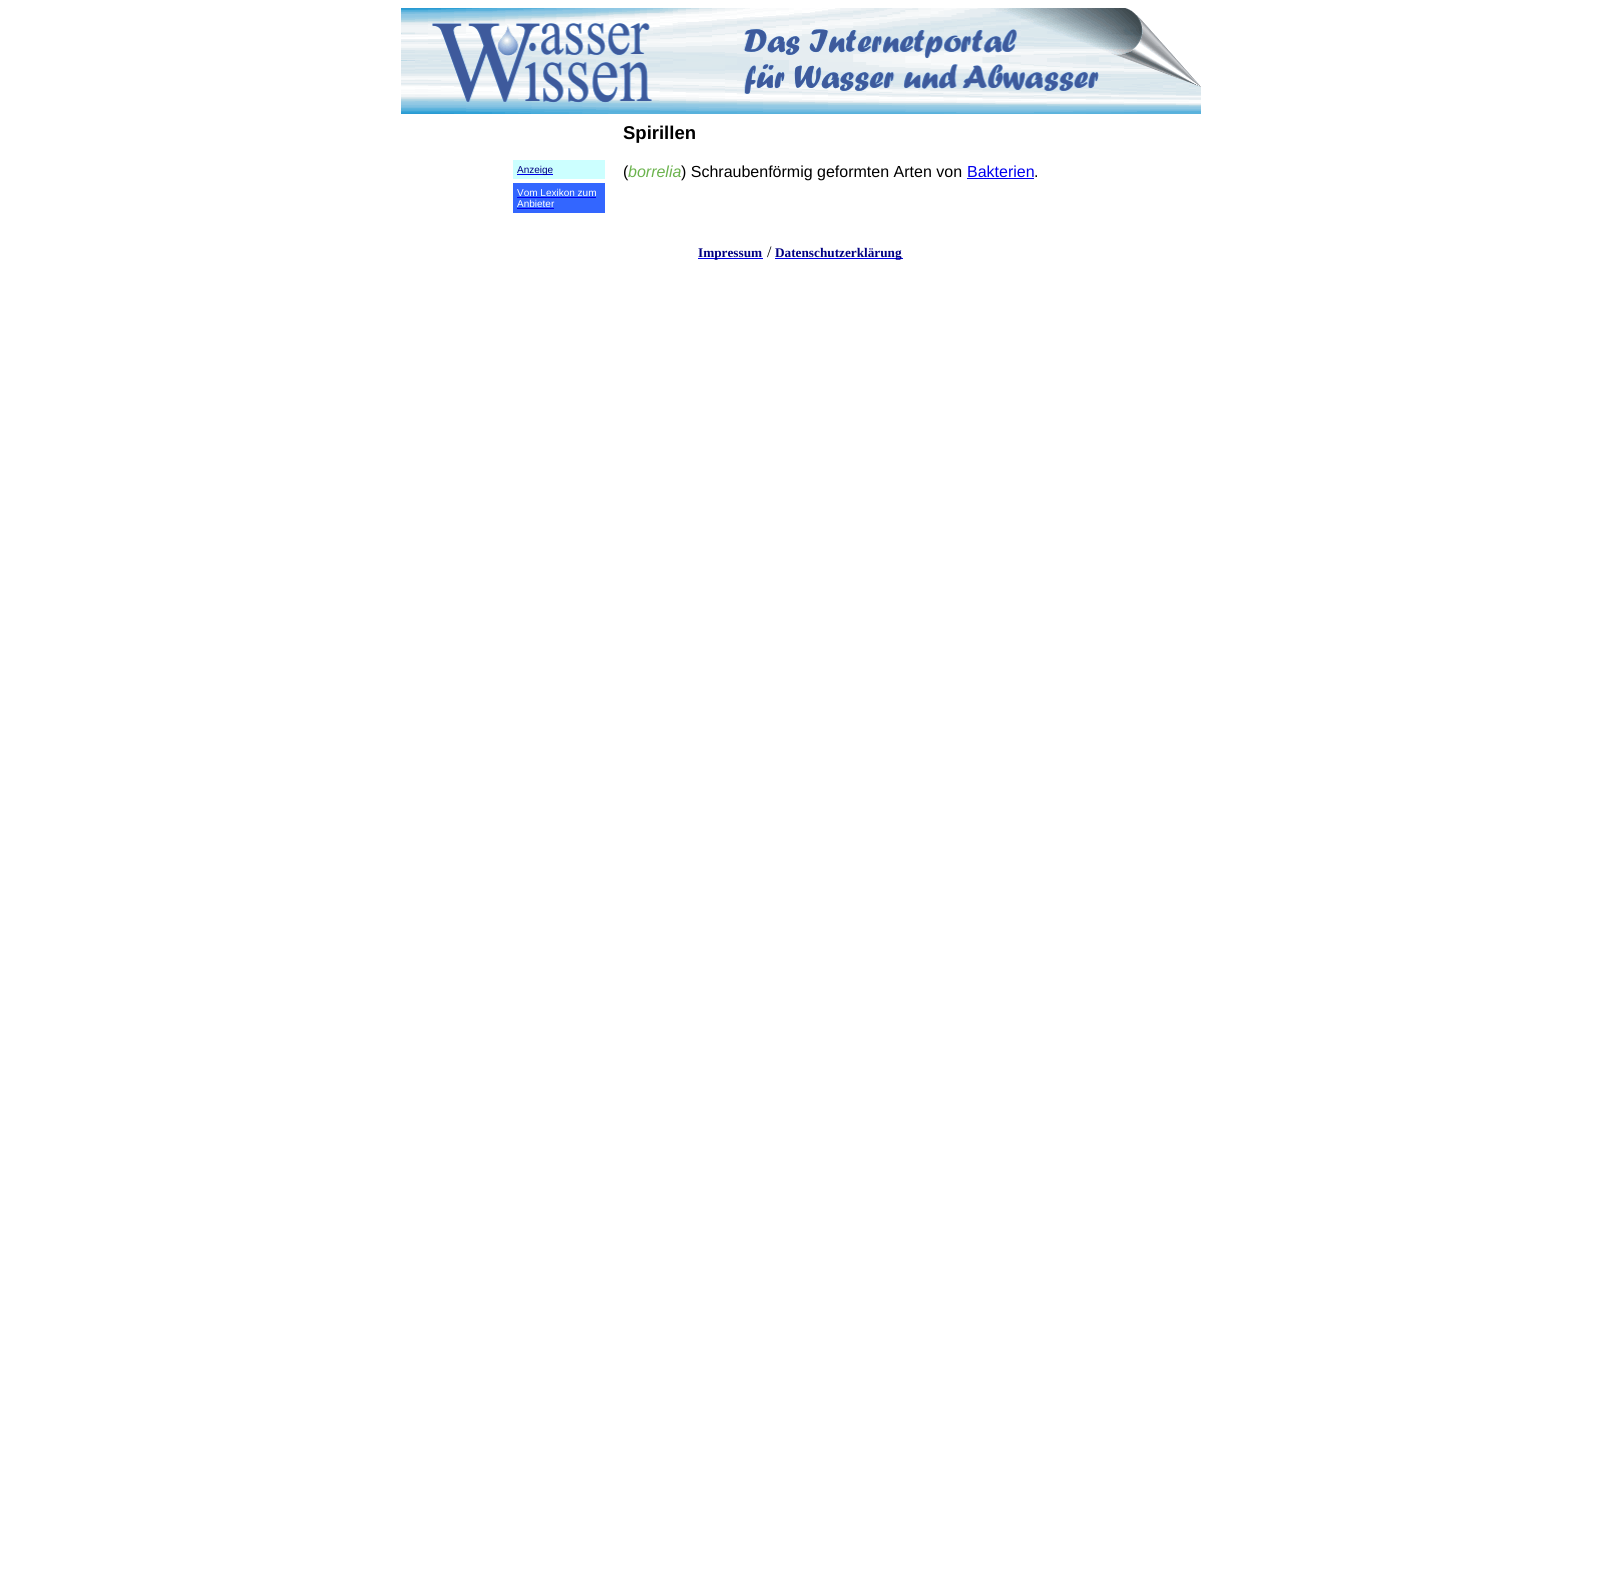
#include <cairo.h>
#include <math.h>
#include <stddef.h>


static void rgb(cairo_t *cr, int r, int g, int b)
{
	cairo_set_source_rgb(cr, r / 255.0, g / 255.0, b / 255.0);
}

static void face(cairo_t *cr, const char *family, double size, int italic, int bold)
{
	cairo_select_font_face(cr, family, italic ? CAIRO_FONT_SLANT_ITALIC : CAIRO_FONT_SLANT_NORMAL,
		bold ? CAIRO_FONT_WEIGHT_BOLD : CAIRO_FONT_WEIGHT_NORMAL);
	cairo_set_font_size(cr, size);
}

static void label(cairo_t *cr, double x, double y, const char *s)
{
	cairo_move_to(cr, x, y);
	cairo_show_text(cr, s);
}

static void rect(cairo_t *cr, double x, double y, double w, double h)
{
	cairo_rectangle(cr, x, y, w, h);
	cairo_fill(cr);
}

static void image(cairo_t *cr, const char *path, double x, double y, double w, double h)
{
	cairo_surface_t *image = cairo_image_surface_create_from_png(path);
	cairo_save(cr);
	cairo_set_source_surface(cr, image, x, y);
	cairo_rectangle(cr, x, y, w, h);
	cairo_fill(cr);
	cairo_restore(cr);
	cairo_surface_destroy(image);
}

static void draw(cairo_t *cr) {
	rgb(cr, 255, 255, 255);
	cairo_paint(cr);
	image(cr, "image0.png", 401, 8, 800, 106);
	face(cr, "Liberation Sans", 18.5, 0, 1);
	rgb(cr, 0, 0, 0);
	label(cr, 623, 139, "Spirillen");
	face(cr, "Liberation Sans", 16, 0, 0);
	label(cr, 623, 177, "(");
	face(cr, "Liberation Sans", 16, 1, 0);
	rgb(cr, 107, 179, 77);
	label(cr, 628, 177, "borrelia");
	face(cr, "Liberation Sans", 16, 0, 0);
	rgb(cr, 0, 0, 0);
	label(cr, 681, 177, ") Schraubenförmig geformten Arten von");
	rgb(cr, 0, 0, 238);
	label(cr, 967, 177, "Bakterien");
	rgb(cr, 0, 0, 0);
	label(cr, 1034, 177, ".");
	rgb(cr, 0, 0, 238);
	rect(cr, 967, 178, 67, 1);
	rgb(cr, 204, 255, 255);
	rect(cr, 513, 160, 92, 19);
	rgb(cr, 0, 0, 238);
	rect(cr, 517, 174, 36, 1);
	face(cr, "Liberation Sans", 10, 0, 0);
	rgb(cr, 0, 0, 128);
	label(cr, 517, 173, "Anzeige");
	rgb(cr, 51, 102, 255);
	rect(cr, 513, 183, 92, 30);
	rgb(cr, 255, 255, 255);
	label(cr, 517, 196, "Vom Lexikon zum");
	rgb(cr, 0, 0, 238);
	rect(cr, 517, 197, 79, 1);
	rgb(cr, 255, 255, 255);
	label(cr, 517, 207, "Anbieter");
	rgb(cr, 0, 0, 238);
	rect(cr, 517, 208, 37, 1);
	rect(cr, 698, 258, 65, 1);
	face(cr, "Liberation Serif", 13.25, 0, 1);
	rgb(cr, 0, 0, 128);
	label(cr, 698, 257, "Impressum");
	face(cr, "Liberation Serif", 16, 0, 0);
	rgb(cr, 0, 0, 0);
	label(cr, 767, 257, "/");
	rgb(cr, 0, 0, 238);
	rect(cr, 775, 258, 128, 1);
	face(cr, "Liberation Serif", 13.25, 0, 1);
	rgb(cr, 0, 0, 128);
	label(cr, 775, 257, "Datenschutzerklärung");
}

int main(void) {
	cairo_surface_t *surface = cairo_image_surface_create(CAIRO_FORMAT_RGB24, 1601, 1580);
	cairo_t *cr = cairo_create(surface);
	cairo_font_options_t *options = cairo_font_options_create();
	cairo_font_options_set_hint_metrics(options, CAIRO_HINT_METRICS_OFF);
	cairo_font_options_set_hint_style(options, CAIRO_HINT_STYLE_NONE);
	cairo_set_font_options(cr, options);
	cairo_set_miter_limit(cr, 4);
	draw(cr);
	cairo_surface_write_to_png(surface, "render.png");
	cairo_font_options_destroy(options);
	cairo_destroy(cr);
	cairo_surface_destroy(surface);
	return 0;
}
